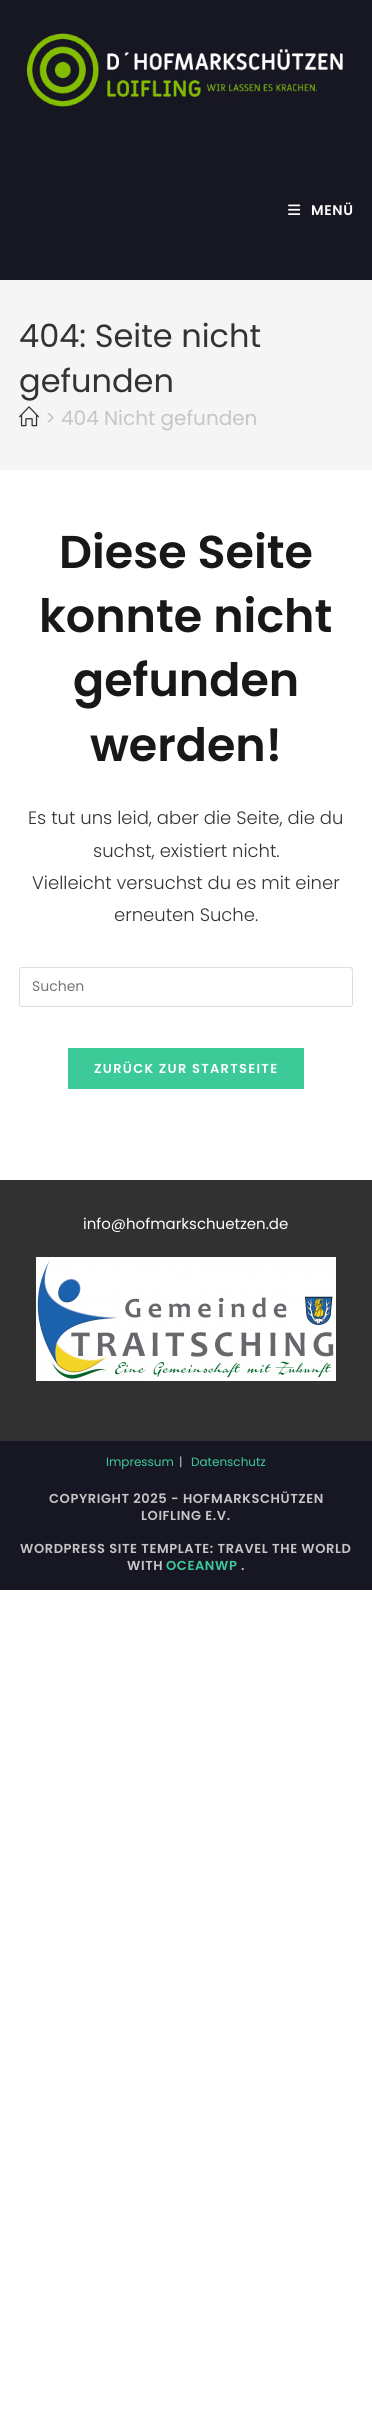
#include <cairo.h>
#include <math.h>
#include <stddef.h>


static void rgb(cairo_t *cr, int r, int g, int b)
{
	cairo_set_source_rgb(cr, r / 255.0, g / 255.0, b / 255.0);
}

static void face(cairo_t *cr, const char *family, double size, int italic, int bold)
{
	cairo_select_font_face(cr, family, italic ? CAIRO_FONT_SLANT_ITALIC : CAIRO_FONT_SLANT_NORMAL,
		bold ? CAIRO_FONT_WEIGHT_BOLD : CAIRO_FONT_WEIGHT_NORMAL);
	cairo_set_font_size(cr, size);
}

static void label(cairo_t *cr, double x, double y, const char *s)
{
	cairo_move_to(cr, x, y);
	cairo_show_text(cr, s);
}

static void tracked(cairo_t *cr, double x, double y, const char *s, double letter, double word)
{
	cairo_move_to(cr, x, y);
	while (*s) {
		char ch[5] = {0};
		int n = 0;
		do ch[n++] = *s++; while ((*s & 0xC0) == 0x80);
		cairo_show_text(cr, ch);
		cairo_rel_move_to(cr, letter + word * (*ch == ' '), 0);
	}
}

static void rect(cairo_t *cr, double x, double y, double w, double h)
{
	cairo_rectangle(cr, x, y, w, h);
	cairo_fill(cr);
}

static void rrect(cairo_t *cr, double x, double y, double w, double h, double r)
{
	cairo_new_sub_path(cr);
	cairo_arc(cr, x + w - r, y + h - r, r, 0, M_PI / 2);
	cairo_arc(cr, x + r, y + h - r, r, M_PI / 2, M_PI);
	cairo_arc(cr, x + r, y + r, r, M_PI, 1.5 * M_PI);
	cairo_arc(cr, x + w - r, y + r, r, 1.5 * M_PI, 2 * M_PI);
	cairo_close_path(cr);
}

static void image(cairo_t *cr, const char *path, double x, double y, double w, double h)
{
	cairo_surface_t *image = cairo_image_surface_create_from_png(path);
	cairo_save(cr);
	cairo_set_source_surface(cr, image, x, y);
	cairo_rectangle(cr, x, y, w, h);
	cairo_fill(cr);
	cairo_restore(cr);
	cairo_surface_destroy(image);
}

static void draw(cairo_t *cr) {
	rgb(cr, 255, 255, 255);
	cairo_paint(cr);
	rgb(cr, 23, 23, 36);
	rect(cr, 0, 0, 372, 280);
	image(cr, "image0.png", 26, 33, 317, 74);
	image(cr, "image1.png", 288, 204, 13, 11);
	face(cr, "Poppins SemiBold", 14, 0, 0);
	rgb(cr, 255, 255, 255);
	tracked(cr, 311, 215, "MENÜ", 0.6, 0);
	rgb(cr, 245, 245, 245);
	rect(cr, 0, 280, 372, 190);
	face(cr, "Poppins", 32, 0, 0);
	rgb(cr, 51, 51, 51);
	label(cr, 19, 347, "404: Seite nicht");
	label(cr, 19, 392, "gefunden");
	image(cr, "image2.png", 19, 406, 20, 21);
	face(cr, "Poppins", 20, 0, 0);
	rgb(cr, 198, 198, 198);
	label(cr, 45, 425, ">");
	label(cr, 61, 425, "404 Nicht gefunden");
	face(cr, "Poppins SemiBold", 46, 0, 0);
	rgb(cr, 22, 24, 25);
	label(cr, 59, 568, "Diese Seite");
	label(cr, 39, 632, "konnte nicht");
	label(cr, 73, 696, "gefunden");
	label(cr, 90, 761, "werden!");
	face(cr, "Poppins Light", 18, 0, 0);
	rgb(cr, 51, 51, 51);
	label(cr, 28, 824, "Es tut uns leid, aber die Seite, die du");
	label(cr, 93, 857, "suchst, existiert nicht.");
	label(cr, 32, 889, "Vielleicht versuchst du es mit einer");
	label(cr, 114, 921, "erneuten Suche.");
	rrect(cr, 19.5, 967.5, 333, 39, 2.5);
	rgb(cr, 221, 221, 221);
	cairo_set_line_width(cr, 1);
	cairo_stroke(cr);
	face(cr, "Poppins", 14, 0, 0);
	rgb(cr, 117, 117, 117);
	label(cr, 32, 991, "Suchen");
	rgb(cr, 60, 202, 152);
	rect(cr, 68, 1048, 236, 41);
	face(cr, "Poppins SemiBold", 13, 0, 0);
	rgb(cr, 255, 255, 255);
	tracked(cr, 94, 1073, "ZURÜCK ZUR STARTSEITE", 1.3, 0);
	rgb(cr, 49, 49, 49);
	rect(cr, 0, 1180, 372, 261);
	face(cr, "Poppins", 15, 0, 0);
	rgb(cr, 255, 255, 255);
	label(cr, 83, 1229, "info@hofmarkschuetzen.de");
	image(cr, "image3.png", 36, 1257, 300, 124);
	rgb(cr, 23, 23, 36);
	rect(cr, 0, 1441, 372, 149);
	face(cr, "Poppins", 12, 0, 0);
	rgb(cr, 60, 202, 152);
	label(cr, 106, 1466, "Impressum");
	rgb(cr, 198, 198, 198);
	label(cr, 179, 1466, "|");
	rgb(cr, 60, 202, 152);
	label(cr, 191, 1466, "Datenschutz");
	face(cr, "Poppins SemiBold", 13, 0, 0);
	rgb(cr, 198, 198, 198);
	tracked(cr, 49, 1503, "COPYRIGHT 2025 - HOFMARKSCHÜTZEN", 0.6, 0);
	tracked(cr, 141, 1520, "LOIFLING E.V.", 0.6, 0);
	tracked(cr, 20, 1553, "WORDPRESS SITE TEMPLATE: TRAVEL THE WORLD", 0.6, 0);
	tracked(cr, 127, 1570, "WITH", 0.6, 0);
	rgb(cr, 60, 202, 152);
	tracked(cr, 166, 1570, "OCEANWP", 0.6, 0);
	rgb(cr, 198, 198, 198);
	tracked(cr, 241, 1570, ".", 0.6, 0);
}

int main(void) {
	cairo_surface_t *surface = cairo_image_surface_create(CAIRO_FORMAT_RGB24, 372, 2418);
	cairo_t *cr = cairo_create(surface);
	cairo_font_options_t *options = cairo_font_options_create();
	cairo_font_options_set_hint_metrics(options, CAIRO_HINT_METRICS_OFF);
	cairo_font_options_set_hint_style(options, CAIRO_HINT_STYLE_NONE);
	cairo_set_font_options(cr, options);
	cairo_set_miter_limit(cr, 4);
	draw(cr);
	cairo_surface_write_to_png(surface, "render.png");
	cairo_font_options_destroy(options);
	cairo_destroy(cr);
	cairo_surface_destroy(surface);
	return 0;
}
